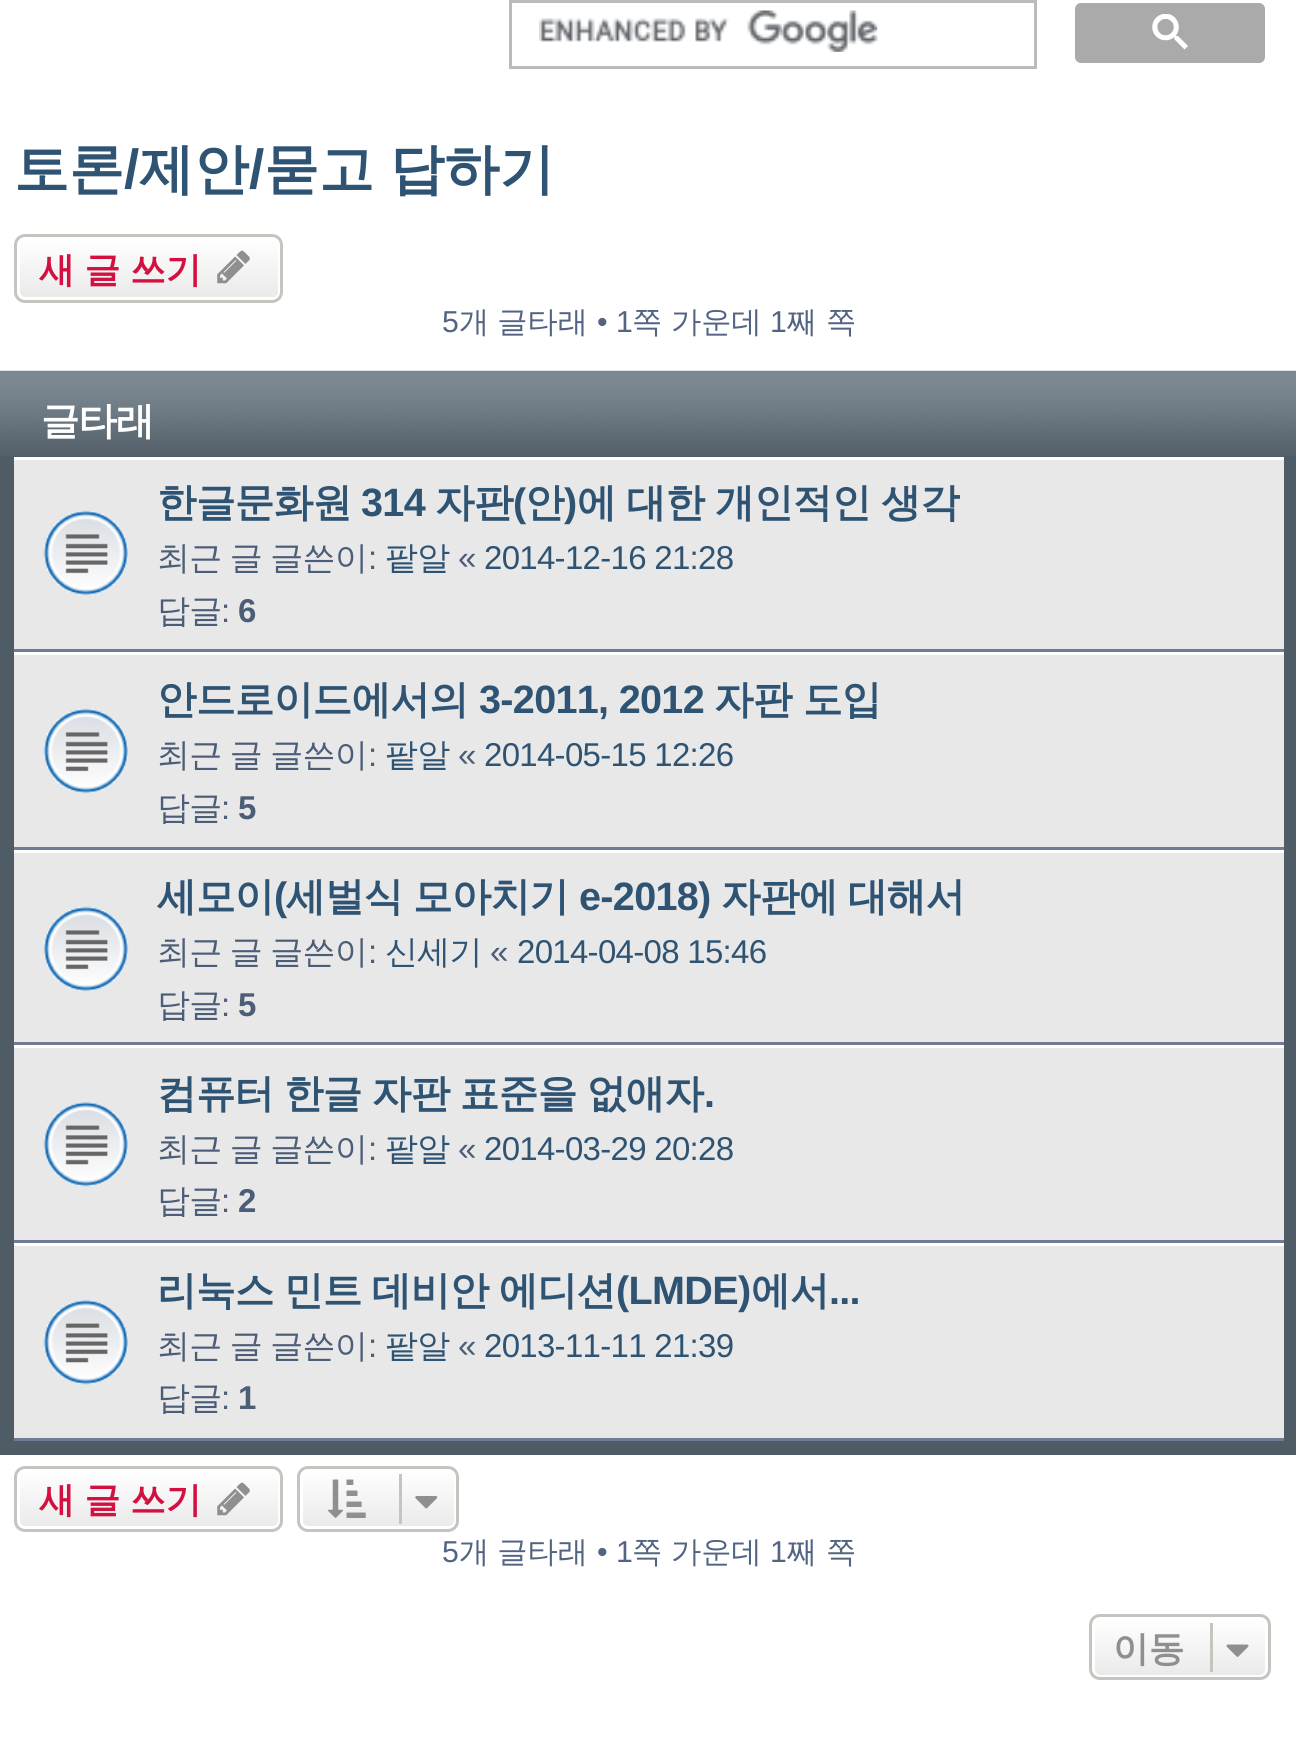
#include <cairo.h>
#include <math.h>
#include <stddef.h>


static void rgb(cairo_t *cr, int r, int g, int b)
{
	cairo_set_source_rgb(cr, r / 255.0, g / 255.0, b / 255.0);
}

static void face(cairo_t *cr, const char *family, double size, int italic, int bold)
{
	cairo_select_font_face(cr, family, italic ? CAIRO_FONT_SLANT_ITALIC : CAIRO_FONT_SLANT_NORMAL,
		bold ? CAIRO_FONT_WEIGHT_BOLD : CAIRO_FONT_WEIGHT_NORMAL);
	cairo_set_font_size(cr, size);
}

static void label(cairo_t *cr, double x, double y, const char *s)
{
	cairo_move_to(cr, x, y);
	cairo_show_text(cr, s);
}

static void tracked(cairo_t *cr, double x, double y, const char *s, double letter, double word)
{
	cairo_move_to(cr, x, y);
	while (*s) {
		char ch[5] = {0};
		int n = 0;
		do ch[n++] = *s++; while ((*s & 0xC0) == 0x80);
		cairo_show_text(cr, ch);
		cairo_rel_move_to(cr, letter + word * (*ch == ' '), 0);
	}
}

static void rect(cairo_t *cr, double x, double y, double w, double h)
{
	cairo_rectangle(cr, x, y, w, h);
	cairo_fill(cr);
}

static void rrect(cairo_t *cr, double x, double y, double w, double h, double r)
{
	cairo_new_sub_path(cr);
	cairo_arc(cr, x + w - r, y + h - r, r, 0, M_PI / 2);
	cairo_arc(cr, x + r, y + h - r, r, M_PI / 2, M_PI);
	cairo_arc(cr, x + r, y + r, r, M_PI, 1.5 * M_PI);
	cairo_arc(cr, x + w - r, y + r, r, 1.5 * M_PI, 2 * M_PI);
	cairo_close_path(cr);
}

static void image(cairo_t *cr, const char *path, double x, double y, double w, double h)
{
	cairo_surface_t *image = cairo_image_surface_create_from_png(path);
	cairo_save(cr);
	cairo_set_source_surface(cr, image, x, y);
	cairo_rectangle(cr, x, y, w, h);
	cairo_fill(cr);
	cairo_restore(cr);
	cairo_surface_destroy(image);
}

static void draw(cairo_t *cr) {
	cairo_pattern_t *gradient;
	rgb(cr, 255, 255, 255);
	cairo_paint(cr);
	cairo_rectangle(cr, 510.5, 1.5, 525, 66);
	rgb(cr, 187, 187, 187);
	cairo_set_line_width(cr, 3);
	cairo_stroke(cr);
	image(cr, "image0.png", 539, 10, 339, 42);
	rgb(cr, 170, 170, 170);
	rrect(cr, 1076.5, 4.5, 187, 57, 4.5);
	cairo_fill_preserve(cr);
	cairo_stroke(cr);
	image(cr, "image1.png", 1152, 14, 36, 36);
	face(cr, "WenQuanYi Zen Hei", 55, 0, 1);
	rgb(cr, 47, 84, 115);
	label(cr, 14, 188, "토론");
	face(cr, "Liberation Sans", 55, 0, 1);
	label(cr, 124, 188, "/");
	face(cr, "WenQuanYi Zen Hei", 55, 0, 1);
	label(cr, 139, 188, "제안");
	face(cr, "Liberation Sans", 55, 0, 1);
	label(cr, 249, 188, "/");
	face(cr, "WenQuanYi Zen Hei", 55, 0, 1);
	tracked(cr, 264, 188, "묻고 답하기", 0, -1);
	cairo_save(cr);
	rrect(cr, 14, 234, 269, 69, 11);
	cairo_clip(cr);
	gradient = cairo_pattern_create_linear(149, 237, 149, 300);
	cairo_pattern_add_color_stop_rgba(gradient, 0, 1, 1, 1, 1);
	cairo_pattern_add_color_stop_rgba(gradient, 1, 0.914, 0.914, 0.914, 1);
	cairo_set_source(cr, gradient);
	cairo_pattern_destroy(gradient);
	rect(cr, 14, 237, 269, 63);
	cairo_restore(cr);
	rrect(cr, 18.5, 238.5, 261, 60, 6.5);
	rgb(cr, 255, 255, 255);
	cairo_stroke(cr);
	rrect(cr, 15.5, 235.5, 266, 66, 9.5);
	rgb(cr, 199, 195, 191);
	cairo_stroke(cr);
	face(cr, "WenQuanYi Zen Hei", 35.75, 0, 1);
	rgb(cr, 211, 17, 65);
	tracked(cr, 39, 282, "새 글 쓰기", 0, -1);
	image(cr, "image2.png", 217, 250, 33, 34);
	face(cr, "Liberation Sans", 30.25, 0, 0);
	rgb(cr, 83, 100, 130);
	label(cr, 442, 332, "5");
	face(cr, "WenQuanYi Zen Hei Medium", 30.25, 0, 0);
	tracked(cr, 459, 332, "개 글타래", 0, -1);
	face(cr, "Liberation Sans", 30.25, 0, 0);
	label(cr, 597, 332, "• 1");
	face(cr, "WenQuanYi Zen Hei Medium", 30.25, 0, 0);
	label(cr, 632, 332, "쪽");
	label(cr, 671, 332, "가운데");
	face(cr, "Liberation Sans", 30.25, 0, 0);
	label(cr, 770, 332, "1");
	face(cr, "WenQuanYi Zen Hei Medium", 30.25, 0, 0);
	label(cr, 787, 332, "째");
	label(cr, 826, 332, "쪽");
	rgb(cr, 80, 92, 101);
	rect(cr, 0, 456, 1296, 999);
	image(cr, "image3.png", 0, 370, 1296, 86);
	face(cr, "WenQuanYi Zen Hei", 38.5, 0, 1);
	rgb(cr, 255, 255, 255);
	tracked(cr, 41, 434, "글타래", -1, 0);
	rgb(cr, 232, 232, 232);
	rect(cr, 14, 460, 1270, 189);
	rgb(cr, 255, 255, 255);
	rect(cr, 14, 457, 1270, 3);
	rgb(cr, 112, 124, 149);
	rect(cr, 14, 649, 1270, 3);
	image(cr, "image4.png", 43, 510, 86, 86);
	face(cr, "WenQuanYi Zen Hei", 39.6, 0, 1);
	rgb(cr, 47, 84, 115);
	tracked(cr, 157, 516, "한글문화원", -0.7, 0);
	face(cr, "Liberation Sans", 39.6, 0, 1);
	tracked(cr, 361, 516, "314", -0.7, 0);
	face(cr, "WenQuanYi Zen Hei", 39.6, 0, 1);
	tracked(cr, 435, 516, "자판", -0.7, 0);
	face(cr, "Liberation Sans", 39.6, 0, 1);
	tracked(cr, 513, 516, "(", -0.7, 0);
	face(cr, "WenQuanYi Zen Hei", 39.6, 0, 1);
	tracked(cr, 525, 516, "안", -0.7, 0);
	face(cr, "Liberation Sans", 39.6, 0, 1);
	tracked(cr, 564, 516, ")", -0.7, 0);
	face(cr, "WenQuanYi Zen Hei", 39.6, 0, 1);
	tracked(cr, 577, 516, "에 대한 개인적인 생각", -0.7, -0.5);
	face(cr, "WenQuanYi Zen Hei Medium", 33, 0, 0);
	rgb(cr, 76, 93, 119);
	tracked(cr, 157, 569, "최근 글 글쓴이", -0.7, -1);
	face(cr, "Liberation Sans", 33, 0, 0);
	tracked(cr, 368, 569, ":", -0.7, 0);
	face(cr, "WenQuanYi Zen Hei Medium", 33, 0, 0);
	rgb(cr, 47, 84, 115);
	tracked(cr, 385, 569, "팥알", -0.7, 0);
	face(cr, "Liberation Sans", 33, 0, 0);
	rgb(cr, 76, 93, 119);
	tracked(cr, 458, 569, "«", -0.7, 0);
	rgb(cr, 47, 84, 115);
	tracked(cr, 484, 569, "2014-12-16 21:28", -0.7, 0);
	face(cr, "WenQuanYi Zen Hei Medium", 33, 0, 0);
	rgb(cr, 76, 93, 119);
	tracked(cr, 157, 622, "답글", -0.7, 0);
	face(cr, "Liberation Sans", 33, 0, 0);
	tracked(cr, 221, 622, ":", -0.7, 0);
	face(cr, "Liberation Sans", 33, 0, 1);
	tracked(cr, 238, 622, "6", -0.7, 0);
	rgb(cr, 232, 232, 232);
	rect(cr, 14, 655, 1270, 192);
	rgb(cr, 255, 255, 255);
	rect(cr, 14, 652, 1270, 3);
	rgb(cr, 112, 124, 149);
	rect(cr, 14, 847, 1270, 3);
	image(cr, "image4.png", 43, 708, 86, 86);
	face(cr, "WenQuanYi Zen Hei", 39.6, 0, 1);
	rgb(cr, 47, 84, 115);
	tracked(cr, 157, 713, "안드로이드에서의", -0.7, 0);
	face(cr, "Liberation Sans", 39.6, 0, 1);
	tracked(cr, 479, 713, "3-2011, 2012", -0.7, 0);
	face(cr, "WenQuanYi Zen Hei", 39.6, 0, 1);
	tracked(cr, 714, 713, "자판", -0.7, 0);
	tracked(cr, 803, 713, "도입", -0.7, 0);
	face(cr, "WenQuanYi Zen Hei Medium", 33, 0, 0);
	rgb(cr, 76, 93, 119);
	tracked(cr, 157, 766, "최근 글 글쓴이", -0.7, -1);
	face(cr, "Liberation Sans", 33, 0, 0);
	tracked(cr, 368, 766, ":", -0.7, 0);
	face(cr, "WenQuanYi Zen Hei Medium", 33, 0, 0);
	rgb(cr, 47, 84, 115);
	tracked(cr, 385, 766, "팥알", -0.7, 0);
	face(cr, "Liberation Sans", 33, 0, 0);
	rgb(cr, 76, 93, 119);
	tracked(cr, 458, 766, "«", -0.7, 0);
	rgb(cr, 47, 84, 115);
	tracked(cr, 484, 766, "2014-05-15 12:26", -0.7, 0);
	face(cr, "WenQuanYi Zen Hei Medium", 33, 0, 0);
	rgb(cr, 76, 93, 119);
	tracked(cr, 157, 819, "답글", -0.7, 0);
	face(cr, "Liberation Sans", 33, 0, 0);
	tracked(cr, 221, 819, ":", -0.7, 0);
	face(cr, "Liberation Sans", 33, 0, 1);
	tracked(cr, 238, 819, "5", -0.7, 0);
	rgb(cr, 232, 232, 232);
	rect(cr, 14, 853, 1270, 189);
	rgb(cr, 255, 255, 255);
	rect(cr, 14, 850, 1270, 3);
	rgb(cr, 112, 124, 149);
	rect(cr, 14, 1042, 1270, 3);
	image(cr, "image4.png", 43, 906, 86, 86);
	face(cr, "WenQuanYi Zen Hei", 39.6, 0, 1);
	rgb(cr, 47, 84, 115);
	tracked(cr, 157, 910, "세모이", -0.7, 0);
	face(cr, "Liberation Sans", 39.6, 0, 1);
	tracked(cr, 274, 910, "(", -0.7, 0);
	face(cr, "WenQuanYi Zen Hei", 39.6, 0, 1);
	tracked(cr, 286, 910, "세벌식 모아치기", -0.7, -1);
	face(cr, "Liberation Sans", 39.6, 0, 1);
	tracked(cr, 579, 910, "e-2018)", -0.7, 0);
	face(cr, "WenQuanYi Zen Hei", 39.6, 0, 1);
	tracked(cr, 721, 910, "자판에 대해서", -0.7, -1);
	face(cr, "WenQuanYi Zen Hei Medium", 33, 0, 0);
	rgb(cr, 76, 93, 119);
	tracked(cr, 157, 963, "최근 글 글쓴이", -0.7, -1);
	face(cr, "Liberation Sans", 33, 0, 0);
	tracked(cr, 368, 963, ":", -0.7, 0);
	face(cr, "WenQuanYi Zen Hei Medium", 33, 0, 0);
	rgb(cr, 47, 84, 115);
	tracked(cr, 385, 963, "신세기", -0.7, 0);
	face(cr, "Liberation Sans", 33, 0, 0);
	rgb(cr, 76, 93, 119);
	tracked(cr, 490, 963, "«", -0.7, 0);
	rgb(cr, 47, 84, 115);
	tracked(cr, 517, 963, "2014-04-08 15:46", -0.7, 0);
	face(cr, "WenQuanYi Zen Hei Medium", 33, 0, 0);
	rgb(cr, 76, 93, 119);
	tracked(cr, 157, 1016, "답글", -0.7, 0);
	face(cr, "Liberation Sans", 33, 0, 0);
	tracked(cr, 221, 1016, ":", -0.7, 0);
	face(cr, "Liberation Sans", 33, 0, 1);
	tracked(cr, 238, 1016, "5", -0.7, 0);
	rgb(cr, 232, 232, 232);
	rect(cr, 14, 1048, 1270, 192);
	rgb(cr, 255, 255, 255);
	rect(cr, 14, 1045, 1270, 3);
	rgb(cr, 112, 124, 149);
	rect(cr, 14, 1240, 1270, 3);
	image(cr, "image5.png", 43, 1102, 86, 85);
	face(cr, "WenQuanYi Zen Hei", 39.6, 0, 1);
	rgb(cr, 47, 84, 115);
	tracked(cr, 157, 1107, "컴퓨터 한글 자판 표준을 없애자", -0.7, -1);
	face(cr, "Liberation Sans", 39.6, 0, 1);
	tracked(cr, 704, 1107, ".", -0.7, 0);
	face(cr, "WenQuanYi Zen Hei Medium", 33, 0, 0);
	rgb(cr, 76, 93, 119);
	tracked(cr, 157, 1160, "최근 글 글쓴이", -0.7, -1);
	face(cr, "Liberation Sans", 33, 0, 0);
	tracked(cr, 368, 1160, ":", -0.7, 0);
	face(cr, "WenQuanYi Zen Hei Medium", 33, 0, 0);
	rgb(cr, 47, 84, 115);
	tracked(cr, 385, 1160, "팥알", -0.7, 0);
	face(cr, "Liberation Sans", 33, 0, 0);
	rgb(cr, 76, 93, 119);
	tracked(cr, 458, 1160, "«", -0.7, 0);
	rgb(cr, 47, 84, 115);
	tracked(cr, 484, 1160, "2014-03-29 20:28", -0.7, 0);
	face(cr, "WenQuanYi Zen Hei Medium", 33, 0, 0);
	rgb(cr, 76, 93, 119);
	tracked(cr, 157, 1212, "답글", -0.7, 0);
	face(cr, "Liberation Sans", 33, 0, 0);
	tracked(cr, 221, 1212, ":", -0.7, 0);
	face(cr, "Liberation Sans", 33, 0, 1);
	tracked(cr, 238, 1212, "2", -0.7, 0);
	rgb(cr, 232, 232, 232);
	rect(cr, 14, 1246, 1270, 192);
	rgb(cr, 255, 255, 255);
	rect(cr, 14, 1243, 1270, 3);
	rgb(cr, 112, 124, 149);
	rect(cr, 14, 1438, 1270, 3);
	image(cr, "image5.png", 43, 1300, 86, 85);
	face(cr, "WenQuanYi Zen Hei", 39.6, 0, 1);
	rgb(cr, 47, 84, 115);
	tracked(cr, 157, 1304, "리눅스 민트 데비안 에디션", -0.7, -1);
	face(cr, "Liberation Sans", 39.6, 0, 1);
	tracked(cr, 616, 1304, "(LMDE)", -0.7, 0);
	face(cr, "WenQuanYi Zen Hei", 39.6, 0, 1);
	tracked(cr, 751, 1304, "에서", -0.7, 0);
	face(cr, "Liberation Sans", 39.6, 0, 1);
	tracked(cr, 829, 1304, "...", -0.7, 0);
	face(cr, "WenQuanYi Zen Hei Medium", 33, 0, 0);
	rgb(cr, 76, 93, 119);
	tracked(cr, 157, 1357, "최근 글 글쓴이", -0.7, -1);
	face(cr, "Liberation Sans", 33, 0, 0);
	tracked(cr, 368, 1357, ":", -0.7, 0);
	face(cr, "WenQuanYi Zen Hei Medium", 33, 0, 0);
	rgb(cr, 47, 84, 115);
	tracked(cr, 385, 1357, "팥알", -0.7, 0);
	face(cr, "Liberation Sans", 33, 0, 0);
	rgb(cr, 76, 93, 119);
	tracked(cr, 458, 1357, "«", -0.7, 0);
	rgb(cr, 47, 84, 115);
	tracked(cr, 484, 1357, "2013-11-11 21:39", -0.7, 0);
	face(cr, "WenQuanYi Zen Hei Medium", 33, 0, 0);
	rgb(cr, 76, 93, 119);
	tracked(cr, 157, 1409, "답글", -0.7, 0);
	face(cr, "Liberation Sans", 33, 0, 0);
	tracked(cr, 221, 1409, ":", -0.7, 0);
	face(cr, "Liberation Sans", 33, 0, 1);
	tracked(cr, 238, 1409, "1", -0.7, 0);
	cairo_save(cr);
	rrect(cr, 14, 1466, 269, 66, 11);
	cairo_clip(cr);
	gradient = cairo_pattern_create_linear(149, 1469, 149, 1529);
	cairo_pattern_add_color_stop_rgba(gradient, 0, 1, 1, 1, 1);
	cairo_pattern_add_color_stop_rgba(gradient, 1, 0.914, 0.914, 0.914, 1);
	cairo_set_source(cr, gradient);
	cairo_pattern_destroy(gradient);
	rect(cr, 14, 1469, 269, 60);
	cairo_restore(cr);
	rrect(cr, 18.5, 1470.5, 261, 57, 6.5);
	rgb(cr, 255, 255, 255);
	cairo_stroke(cr);
	rrect(cr, 15.5, 1467.5, 266, 63, 9.5);
	rgb(cr, 199, 195, 191);
	cairo_stroke(cr);
	face(cr, "WenQuanYi Zen Hei", 35.75, 0, 1);
	rgb(cr, 211, 17, 65);
	tracked(cr, 39, 1512, "새 글 쓰기", 0, -1);
	image(cr, "image6.png", 217, 1482, 33, 34);
	cairo_save(cr);
	rrect(cr, 297, 1466, 162, 66, 11);
	cairo_clip(cr);
	gradient = cairo_pattern_create_linear(378, 1469, 378, 1529);
	cairo_pattern_add_color_stop_rgba(gradient, 0, 1, 1, 1, 1);
	cairo_pattern_add_color_stop_rgba(gradient, 1, 0.914, 0.914, 0.914, 1);
	cairo_set_source(cr, gradient);
	cairo_pattern_destroy(gradient);
	rect(cr, 297, 1469, 162, 60);
	cairo_restore(cr);
	rrect(cr, 301.5, 1470.5, 154, 57, 6.5);
	rgb(cr, 255, 255, 255);
	cairo_stroke(cr);
	rrect(cr, 298.5, 1467.5, 159, 63, 9.5);
	rgb(cr, 199, 195, 191);
	cairo_stroke(cr);
	image(cr, "image7.png", 328, 1479, 38, 39);
	rect(cr, 399, 1474, 3, 50);
	image(cr, "image8.png", 415, 1496, 23, 13);
	face(cr, "Liberation Sans", 30.25, 0, 0);
	rgb(cr, 83, 100, 130);
	label(cr, 442, 1562, "5");
	face(cr, "WenQuanYi Zen Hei Medium", 30.25, 0, 0);
	tracked(cr, 459, 1562, "개 글타래", 0, -1);
	face(cr, "Liberation Sans", 30.25, 0, 0);
	label(cr, 597, 1562, "• 1");
	face(cr, "WenQuanYi Zen Hei Medium", 30.25, 0, 0);
	label(cr, 632, 1562, "쪽");
	label(cr, 671, 1562, "가운데");
	face(cr, "Liberation Sans", 30.25, 0, 0);
	label(cr, 770, 1562, "1");
	face(cr, "WenQuanYi Zen Hei Medium", 30.25, 0, 0);
	label(cr, 787, 1562, "째");
	label(cr, 826, 1562, "쪽");
	cairo_save(cr);
	rrect(cr, 1089, 1614, 182, 66, 11);
	cairo_clip(cr);
	gradient = cairo_pattern_create_linear(1180, 1617, 1180, 1678);
	cairo_pattern_add_color_stop_rgba(gradient, 0, 1, 1, 1, 1);
	cairo_pattern_add_color_stop_rgba(gradient, 1, 0.914, 0.914, 0.914, 1);
	cairo_set_source(cr, gradient);
	cairo_pattern_destroy(gradient);
	rect(cr, 1089, 1617, 182, 61);
	cairo_restore(cr);
	rrect(cr, 1093.5, 1618.5, 173, 58, 6.5);
	rgb(cr, 255, 255, 255);
	cairo_stroke(cr);
	rrect(cr, 1090.5, 1615.5, 179, 63, 9.5);
	rgb(cr, 199, 195, 191);
	cairo_stroke(cr);
	face(cr, "WenQuanYi Zen Hei", 35.75, 0, 1);
	rgb(cr, 143, 143, 143);
	label(cr, 1113, 1661, "이동");
	rgb(cr, 199, 195, 191);
	rect(cr, 1210, 1623, 3, 49);
	image(cr, "image9.png", 1226, 1644, 23, 13);
}

int main(void) {
	cairo_surface_t *surface = cairo_image_surface_create(CAIRO_FORMAT_RGB24, 1296, 1740);
	cairo_t *cr = cairo_create(surface);
	cairo_font_options_t *options = cairo_font_options_create();
	cairo_font_options_set_hint_metrics(options, CAIRO_HINT_METRICS_OFF);
	cairo_font_options_set_hint_style(options, CAIRO_HINT_STYLE_NONE);
	cairo_set_font_options(cr, options);
	cairo_set_miter_limit(cr, 4);
	draw(cr);
	cairo_surface_write_to_png(surface, "render.png");
	cairo_font_options_destroy(options);
	cairo_destroy(cr);
	cairo_surface_destroy(surface);
	return 0;
}
